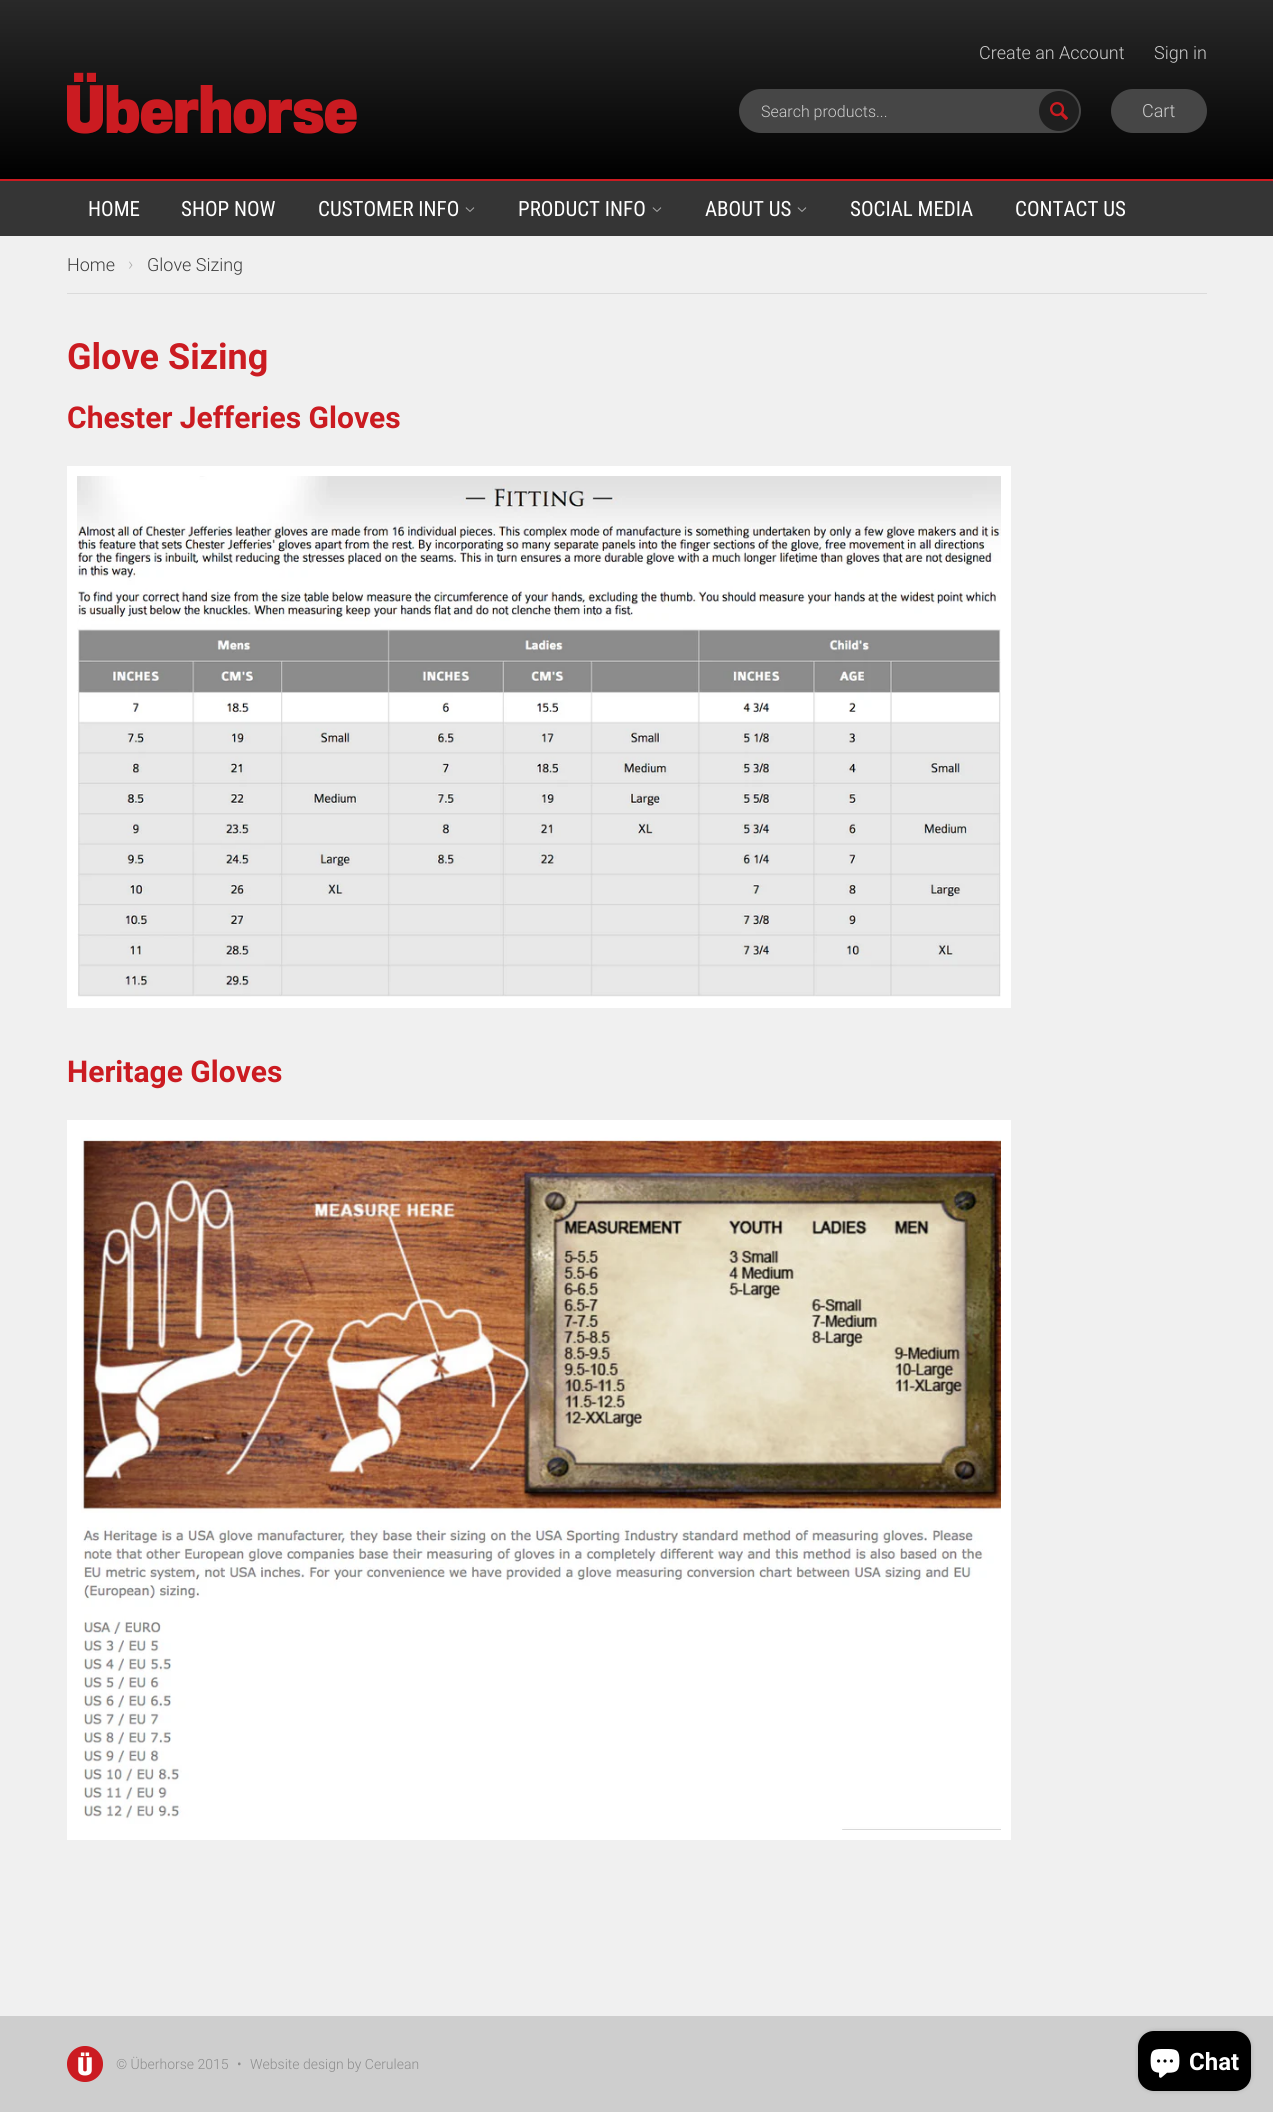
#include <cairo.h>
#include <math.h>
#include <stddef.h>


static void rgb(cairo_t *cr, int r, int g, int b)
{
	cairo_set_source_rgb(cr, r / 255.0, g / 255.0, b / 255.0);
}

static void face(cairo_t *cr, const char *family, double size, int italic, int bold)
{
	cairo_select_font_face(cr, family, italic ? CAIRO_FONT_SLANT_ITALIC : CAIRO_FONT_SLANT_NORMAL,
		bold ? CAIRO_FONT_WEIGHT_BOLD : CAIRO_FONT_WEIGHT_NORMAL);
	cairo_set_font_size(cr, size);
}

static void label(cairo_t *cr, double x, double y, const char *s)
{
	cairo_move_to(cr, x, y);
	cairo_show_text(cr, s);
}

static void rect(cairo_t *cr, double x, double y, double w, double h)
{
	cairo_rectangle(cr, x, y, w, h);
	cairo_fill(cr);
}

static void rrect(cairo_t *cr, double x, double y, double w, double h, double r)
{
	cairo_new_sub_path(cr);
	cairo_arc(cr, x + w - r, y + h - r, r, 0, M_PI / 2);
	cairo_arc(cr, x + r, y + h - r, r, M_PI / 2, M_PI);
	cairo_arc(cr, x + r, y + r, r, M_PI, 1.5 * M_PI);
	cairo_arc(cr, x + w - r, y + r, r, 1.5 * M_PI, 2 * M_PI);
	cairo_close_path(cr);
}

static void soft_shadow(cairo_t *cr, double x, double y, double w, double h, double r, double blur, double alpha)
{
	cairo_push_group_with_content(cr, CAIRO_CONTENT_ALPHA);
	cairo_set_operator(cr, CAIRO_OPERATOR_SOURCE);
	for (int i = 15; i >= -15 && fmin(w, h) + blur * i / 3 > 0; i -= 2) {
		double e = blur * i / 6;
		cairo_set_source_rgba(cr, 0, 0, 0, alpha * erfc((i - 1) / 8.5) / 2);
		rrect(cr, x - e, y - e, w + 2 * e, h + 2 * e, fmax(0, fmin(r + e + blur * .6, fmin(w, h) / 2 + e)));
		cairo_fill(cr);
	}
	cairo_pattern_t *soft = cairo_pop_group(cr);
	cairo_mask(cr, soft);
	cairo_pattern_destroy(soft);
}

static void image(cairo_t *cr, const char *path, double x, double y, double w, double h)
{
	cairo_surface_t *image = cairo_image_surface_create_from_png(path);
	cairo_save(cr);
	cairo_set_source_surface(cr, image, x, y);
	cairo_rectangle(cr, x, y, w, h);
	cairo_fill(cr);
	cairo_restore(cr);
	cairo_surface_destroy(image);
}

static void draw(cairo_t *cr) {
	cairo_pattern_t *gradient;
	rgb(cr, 240, 240, 240);
	cairo_paint(cr);
	gradient = cairo_pattern_create_linear(637, 0, 637, 179);
	cairo_pattern_add_color_stop_rgba(gradient, 0, 0.161, 0.161, 0.161, 1);
	cairo_pattern_add_color_stop_rgba(gradient, 1, 0, 0, 0, 1);
	cairo_set_source(cr, gradient);
	cairo_pattern_destroy(gradient);
	rect(cr, 0, 0, 1273, 179);
	rgb(cr, 203, 27, 33);
	rect(cr, 0, 179, 1273, 2);
	image(cr, "image0.png", 67, 72, 290, 62);
	face(cr, "Roboto Light", 18, 0, 0);
	rgb(cr, 205, 205, 205);
	label(cr, 979, 59, "Create an Account");
	label(cr, 1154, 59, "Sign in");
	rgb(cr, 70, 70, 70);
	rrect(cr, 739, 89, 342, 44, 22);
	cairo_fill(cr);
	face(cr, "Roboto Light", 16, 0, 0);
	rgb(cr, 205, 205, 205);
	label(cr, 761, 117, "Search products...");
	rgb(cr, 31, 31, 31);
	cairo_new_path(cr);
	cairo_arc(cr, 1059, 111, 20, 0, 2 * M_PI);
	cairo_fill(cr);
	image(cr, "image1.png", 1050, 102, 18, 18);
	rgb(cr, 70, 70, 70);
	rrect(cr, 1111, 89, 96, 44, 22);
	cairo_fill(cr);
	face(cr, "Roboto Light", 18, 0, 0);
	rgb(cr, 205, 205, 205);
	label(cr, 1142, 117, "Cart");
	rgb(cr, 53, 53, 53);
	rect(cr, 0, 181, 1273, 55);
	face(cr, "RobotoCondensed", 21, 0, 0);
	rgb(cr, 255, 255, 255);
	label(cr, 88, 216, "HOME");
	label(cr, 181, 216, "SHOP NOW");
	label(cr, 318, 216, "CUSTOMER INFO");
	image(cr, "image2.png", 465, 207, 10, 5);
	label(cr, 518, 216, "PRODUCT INFO");
	image(cr, "image2.png", 652, 207, 10, 5);
	label(cr, 705, 216, "ABOUT US");
	image(cr, "image2.png", 797, 207, 10, 5);
	label(cr, 850, 216, "SOCIAL MEDIA");
	label(cr, 1015, 216, "CONTACT US");
	rgb(cr, 219, 219, 219);
	rect(cr, 67, 293, 1140, 1);
	face(cr, "Roboto Light", 18, 0, 0);
	rgb(cr, 61, 61, 61);
	label(cr, 67, 271, "Home");
	rgb(cr, 173, 173, 173);
	label(cr, 128, 270, "›");
	rgb(cr, 61, 61, 61);
	label(cr, 147, 271, "Glove Sizing");
	face(cr, "Roboto", 36, 0, 1);
	rgb(cr, 203, 27, 33);
	label(cr, 67, 369, "Glove Sizing");
	face(cr, "Roboto", 30, 0, 1);
	label(cr, 67, 428, "Chester Jefferies Gloves");
	rgb(cr, 255, 255, 255);
	rect(cr, 67, 466, 944, 542);
	image(cr, "image3.png", 77, 476, 924, 521);
	rgb(cr, 203, 27, 33);
	label(cr, 67, 1082, "Heritage Gloves");
	rgb(cr, 255, 255, 255);
	rect(cr, 67, 1120, 944, 720);
	image(cr, "image4.png", 81, 1137, 920, 693);
	rgb(cr, 206, 206, 206);
	rect(cr, 0, 2016, 1273, 96);
	image(cr, "image5.png", 67, 2046, 36, 36);
	face(cr, "Roboto Light", 14, 0, 0);
	rgb(cr, 140, 140, 140);
	label(cr, 116, 2069, "© Überhorse 2015");
	label(cr, 237, 2069, "•");
	label(cr, 250, 2069, "Website design by Cerulean");
	rgb(cr, 0, 0, 0);
	soft_shadow(cr, 1138, 2031, 113, 60, 16, 2.5, 0.15);
	rgb(cr, 0, 0, 0);
	rrect(cr, 1138, 2031, 113, 60, 16);
	cairo_fill(cr);
	image(cr, "image6.png", 1150, 2049, 30, 29);
	face(cr, "Roboto", 24, 0, 1);
	rgb(cr, 255, 255, 255);
	label(cr, 1189, 2070, "Chat");
}

int main(void) {
	cairo_surface_t *surface = cairo_image_surface_create(CAIRO_FORMAT_RGB24, 1273, 2112);
	cairo_t *cr = cairo_create(surface);
	cairo_font_options_t *options = cairo_font_options_create();
	cairo_font_options_set_hint_metrics(options, CAIRO_HINT_METRICS_OFF);
	cairo_font_options_set_hint_style(options, CAIRO_HINT_STYLE_NONE);
	cairo_set_font_options(cr, options);
	cairo_set_miter_limit(cr, 4);
	draw(cr);
	cairo_surface_write_to_png(surface, "render.png");
	cairo_font_options_destroy(options);
	cairo_destroy(cr);
	cairo_surface_destroy(surface);
	return 0;
}
